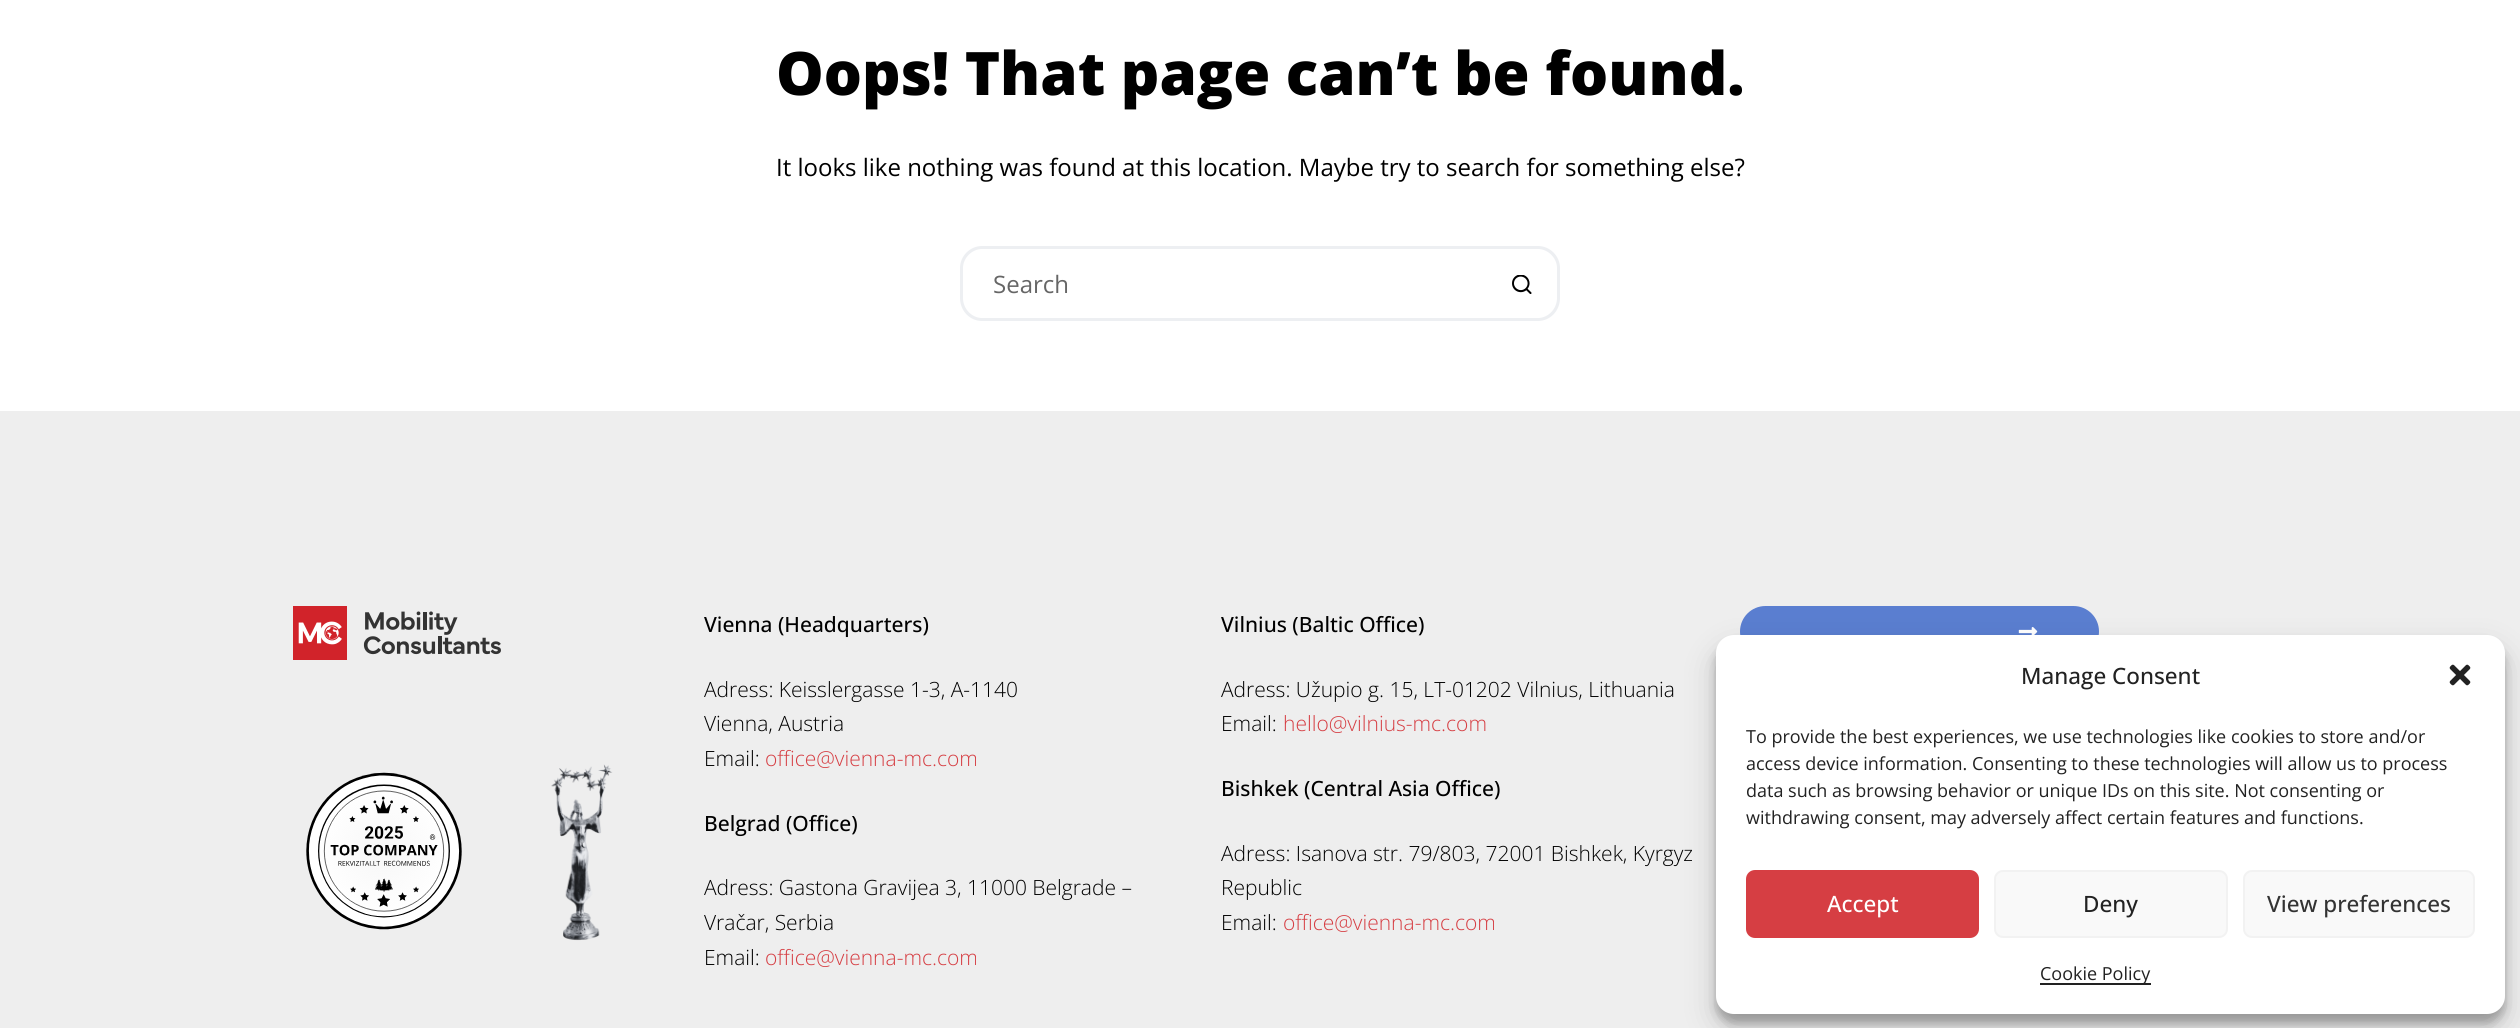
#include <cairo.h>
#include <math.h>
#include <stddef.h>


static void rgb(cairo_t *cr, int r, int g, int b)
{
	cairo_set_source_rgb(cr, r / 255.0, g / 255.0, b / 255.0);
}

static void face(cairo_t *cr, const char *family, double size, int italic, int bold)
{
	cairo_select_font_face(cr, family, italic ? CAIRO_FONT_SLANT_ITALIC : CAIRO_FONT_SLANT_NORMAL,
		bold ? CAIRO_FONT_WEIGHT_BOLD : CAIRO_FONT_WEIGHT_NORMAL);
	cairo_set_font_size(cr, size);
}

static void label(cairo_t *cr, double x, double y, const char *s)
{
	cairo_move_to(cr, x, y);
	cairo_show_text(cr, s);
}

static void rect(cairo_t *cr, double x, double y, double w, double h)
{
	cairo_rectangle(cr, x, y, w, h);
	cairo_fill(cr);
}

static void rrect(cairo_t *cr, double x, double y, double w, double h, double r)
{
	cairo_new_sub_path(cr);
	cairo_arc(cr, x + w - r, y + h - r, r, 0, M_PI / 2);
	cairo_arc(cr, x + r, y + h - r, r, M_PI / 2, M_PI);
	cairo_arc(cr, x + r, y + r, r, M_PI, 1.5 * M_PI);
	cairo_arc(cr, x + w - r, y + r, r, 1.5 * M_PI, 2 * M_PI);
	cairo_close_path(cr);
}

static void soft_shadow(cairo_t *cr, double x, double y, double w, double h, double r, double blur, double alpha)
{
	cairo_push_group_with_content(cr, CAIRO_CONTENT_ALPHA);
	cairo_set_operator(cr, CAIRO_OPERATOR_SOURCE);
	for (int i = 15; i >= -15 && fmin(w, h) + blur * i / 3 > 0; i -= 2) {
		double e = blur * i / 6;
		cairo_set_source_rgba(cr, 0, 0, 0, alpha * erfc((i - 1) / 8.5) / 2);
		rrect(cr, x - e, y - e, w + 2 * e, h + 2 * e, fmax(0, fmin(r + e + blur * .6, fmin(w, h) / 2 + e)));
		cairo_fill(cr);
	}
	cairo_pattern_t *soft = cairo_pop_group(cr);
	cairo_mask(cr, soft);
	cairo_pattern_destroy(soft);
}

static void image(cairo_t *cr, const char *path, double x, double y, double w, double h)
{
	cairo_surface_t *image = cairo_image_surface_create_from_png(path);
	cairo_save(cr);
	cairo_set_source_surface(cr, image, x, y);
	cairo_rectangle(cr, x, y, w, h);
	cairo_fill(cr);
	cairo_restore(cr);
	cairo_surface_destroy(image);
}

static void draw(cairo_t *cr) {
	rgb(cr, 255, 255, 255);
	cairo_paint(cr);
	face(cr, "Open Sans ExtraBold", 60, 0, 0);
	rgb(cr, 0, 0, 0);
	label(cr, 776, 95, "Oops! That page can’t be found.");
	face(cr, "Open Sans", 24, 0, 0);
	label(cr, 776, 176, "It looks like nothing was found at this location. Maybe try to search for something else?");
	rgb(cr, 237, 239, 242);
	cairo_set_fill_rule(cr, CAIRO_FILL_RULE_EVEN_ODD);
	cairo_new_path(cr);
	cairo_move_to(cr, 982, 246);
	cairo_line_to(cr, 1485, 246);
	cairo_line_to(cr, 1485, 321);
	cairo_line_to(cr, 982, 321);
	cairo_curve_to(cr, 970, 321, 960, 311, 960, 298);
	cairo_line_to(cr, 960, 268);
	cairo_curve_to(cr, 960, 256, 970, 246, 982, 246);
	cairo_close_path(cr);
	cairo_move_to(cr, 982, 249);
	cairo_line_to(cr, 1485, 249);
	cairo_line_to(cr, 1485, 318);
	cairo_line_to(cr, 982, 318);
	cairo_curve_to(cr, 972, 318, 963, 309, 963, 298);
	cairo_line_to(cr, 963, 268);
	cairo_curve_to(cr, 963, 258, 972, 249, 982, 249);
	cairo_close_path(cr);
	cairo_fill(cr);
	rgb(cr, 102, 102, 102);
	label(cr, 993, 293, "Search");
	rgb(cr, 237, 239, 242);
	cairo_new_path(cr);
	cairo_move_to(cr, 1485, 246);
	cairo_line_to(cr, 1538, 246);
	cairo_curve_to(cr, 1550, 246, 1560, 256, 1560, 268);
	cairo_line_to(cr, 1560, 298);
	cairo_curve_to(cr, 1560, 311, 1550, 321, 1538, 321);
	cairo_line_to(cr, 1485, 321);
	cairo_close_path(cr);
	cairo_move_to(cr, 1485, 249);
	cairo_line_to(cr, 1538, 249);
	cairo_curve_to(cr, 1548, 249, 1557, 258, 1557, 268);
	cairo_line_to(cr, 1557, 298);
	cairo_curve_to(cr, 1557, 309, 1548, 318, 1538, 318);
	cairo_line_to(cr, 1485, 318);
	cairo_close_path(cr);
	cairo_fill(cr);
	image(cr, "image0.png", 1512, 275, 20, 19);
	rgb(cr, 238, 238, 238);
	rect(cr, 0, 411, 2520, 617);
	image(cr, "image1.png", 293, 606, 208, 54);
	image(cr, "image2.png", 306, 772, 156, 158);
	image(cr, "image3.png", 551, 764, 62, 177);
	face(cr, "Open Sans Medium", 21, 0, 0);
	rgb(cr, 0, 0, 0);
	label(cr, 704, 632, "Vienna (Headquarters)");
	face(cr, "Open Sans Light", 21, 0, 0);
	label(cr, 704, 697, "Adress: Keisslergasse 1-3, A-1140");
	label(cr, 704, 731, "Vienna, Austria");
	label(cr, 704, 766, "Email:");
	rgb(cr, 214, 62, 67);
	label(cr, 765, 766, "office@vienna-mc.com");
	face(cr, "Open Sans Medium", 21, 0, 0);
	rgb(cr, 0, 0, 0);
	label(cr, 704, 831, "Belgrad (Office)");
	face(cr, "Open Sans Light", 21, 0, 0);
	label(cr, 704, 895, "Adress: Gastona Gravijea 3, 11000 Belgrade –");
	label(cr, 704, 930, "Vračar, Serbia");
	label(cr, 704, 965, "Email:");
	rgb(cr, 214, 62, 67);
	label(cr, 765, 965, "office@vienna-mc.com");
	face(cr, "Open Sans Medium", 21, 0, 0);
	rgb(cr, 0, 0, 0);
	label(cr, 1221, 632, "Vilnius (Baltic Office)");
	face(cr, "Open Sans Light", 21, 0, 0);
	label(cr, 1221, 697, "Adress: Užupio g. 15, LT-01202 Vilnius, Lithuania");
	label(cr, 1221, 731, "Email:");
	rgb(cr, 214, 62, 67);
	label(cr, 1283, 731, "hello@vilnius-mc.com");
	face(cr, "Open Sans Medium", 21, 0, 0);
	rgb(cr, 0, 0, 0);
	label(cr, 1221, 796, "Bishkek (Central Asia Office)");
	face(cr, "Open Sans Light", 21, 0, 0);
	label(cr, 1221, 861, "Adress: Isanova str. 79/803, 72001 Bishkek, Kyrgyz");
	label(cr, 1221, 895, "Republic");
	label(cr, 1221, 930, "Email:");
	rgb(cr, 214, 62, 67);
	label(cr, 1283, 930, "office@vienna-mc.com");
	rgb(cr, 90, 126, 208);
	rrect(cr, 1740, 606, 359, 51, 25.5);
	cairo_fill(cr);
	image(cr, "image4.png", 2018, 627, 20, 8);
	rgb(cr, 0, 0, 0);
	soft_shadow(cr, 1716, 644, 789, 379, 18, 4.5, 0.23);
	soft_shadow(cr, 1716, 650, 789, 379, 18, 15, 0.19);
	rgb(cr, 255, 255, 255);
	rrect(cr, 1716, 635, 789, 379, 18);
	cairo_fill(cr);
	face(cr, "Open Sans Medium", 22.5, 0, 0);
	rgb(cr, 34, 34, 34);
	label(cr, 2021, 684, "Manage Consent");
	image(cr, "image5.png", 2449, 664, 22, 22);
	face(cr, "Open Sans", 18, 0, 0);
	label(cr, 1746, 743, "To provide the best experiences, we use technologies like cookies to store and/or");
	label(cr, 1746, 770, "access device information. Consenting to these technologies will allow us to process");
	label(cr, 1746, 797, "data such as browsing behavior or unique IDs on this site. Not consenting or");
	label(cr, 1746, 824, "withdrawing consent, may adversely affect certain features and functions.");
	rgb(cr, 214, 62, 67);
	rrect(cr, 1747, 871, 231, 66, 8);
	cairo_fill_preserve(cr);
	cairo_stroke(cr);
	face(cr, "Open Sans Medium", 22.5, 0, 0);
	rgb(cr, 255, 255, 255);
	label(cr, 1827, 912, "Accept");
	rgb(cr, 249, 249, 249);
	rrect(cr, 1995, 871, 232, 66, 8);
	cairo_fill_preserve(cr);
	rgb(cr, 242, 242, 242);
	cairo_stroke(cr);
	rgb(cr, 34, 34, 34);
	label(cr, 2083, 912, "Deny");
	rgb(cr, 249, 249, 249);
	rrect(cr, 2244, 871, 230, 66, 8);
	cairo_fill_preserve(cr);
	rgb(cr, 242, 242, 242);
	cairo_stroke(cr);
	rgb(cr, 51, 51, 51);
	label(cr, 2267, 912, "View preferences");
	rgb(cr, 34, 34, 34);
	rect(cr, 2040, 983, 111, 2);
	face(cr, "Open Sans", 18, 0, 0);
	label(cr, 2040, 980, "Cookie Policy");
}

int main(void) {
	cairo_surface_t *surface = cairo_image_surface_create(CAIRO_FORMAT_RGB24, 2520, 1028);
	cairo_t *cr = cairo_create(surface);
	cairo_font_options_t *options = cairo_font_options_create();
	cairo_font_options_set_hint_metrics(options, CAIRO_HINT_METRICS_OFF);
	cairo_font_options_set_hint_style(options, CAIRO_HINT_STYLE_NONE);
	cairo_set_font_options(cr, options);
	cairo_set_miter_limit(cr, 4);
	draw(cr);
	cairo_surface_write_to_png(surface, "render.png");
	cairo_font_options_destroy(options);
	cairo_destroy(cr);
	cairo_surface_destroy(surface);
	return 0;
}
